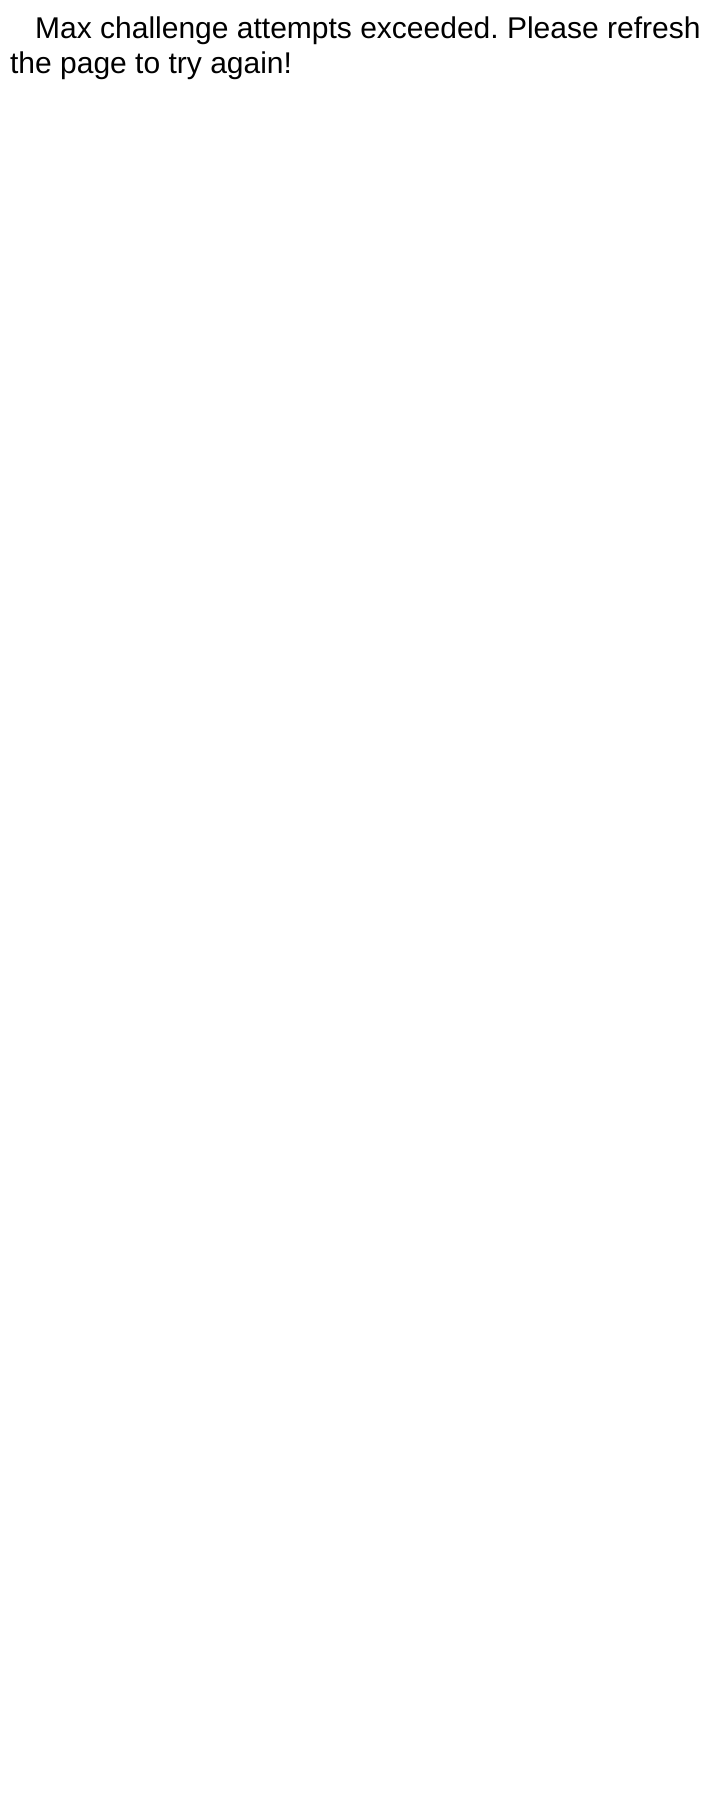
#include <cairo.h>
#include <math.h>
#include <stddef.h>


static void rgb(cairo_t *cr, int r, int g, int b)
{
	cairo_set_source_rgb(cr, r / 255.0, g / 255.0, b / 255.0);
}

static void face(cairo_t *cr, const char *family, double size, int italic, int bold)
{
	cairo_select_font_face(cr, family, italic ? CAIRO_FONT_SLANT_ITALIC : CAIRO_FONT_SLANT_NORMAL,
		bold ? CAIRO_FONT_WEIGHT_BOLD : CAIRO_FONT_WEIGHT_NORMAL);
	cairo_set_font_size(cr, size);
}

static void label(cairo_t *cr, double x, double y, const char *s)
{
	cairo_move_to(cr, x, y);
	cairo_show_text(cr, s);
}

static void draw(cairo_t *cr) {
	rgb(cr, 255, 255, 255);
	cairo_paint(cr);
	face(cr, "Liberation Sans", 30, 0, 0);
	rgb(cr, 0, 0, 0);
	label(cr, 35, 38, "Max challenge attempts exceeded. Please refresh");
	label(cr, 10, 73, "the page to try again!");
}

int main(void) {
	cairo_surface_t *surface = cairo_image_surface_create(CAIRO_FORMAT_RGB24, 721, 1794);
	cairo_t *cr = cairo_create(surface);
	cairo_font_options_t *options = cairo_font_options_create();
	cairo_font_options_set_hint_metrics(options, CAIRO_HINT_METRICS_OFF);
	cairo_font_options_set_hint_style(options, CAIRO_HINT_STYLE_NONE);
	cairo_set_font_options(cr, options);
	cairo_set_miter_limit(cr, 4);
	draw(cr);
	cairo_surface_write_to_png(surface, "render.png");
	cairo_font_options_destroy(options);
	cairo_destroy(cr);
	cairo_surface_destroy(surface);
	return 0;
}
